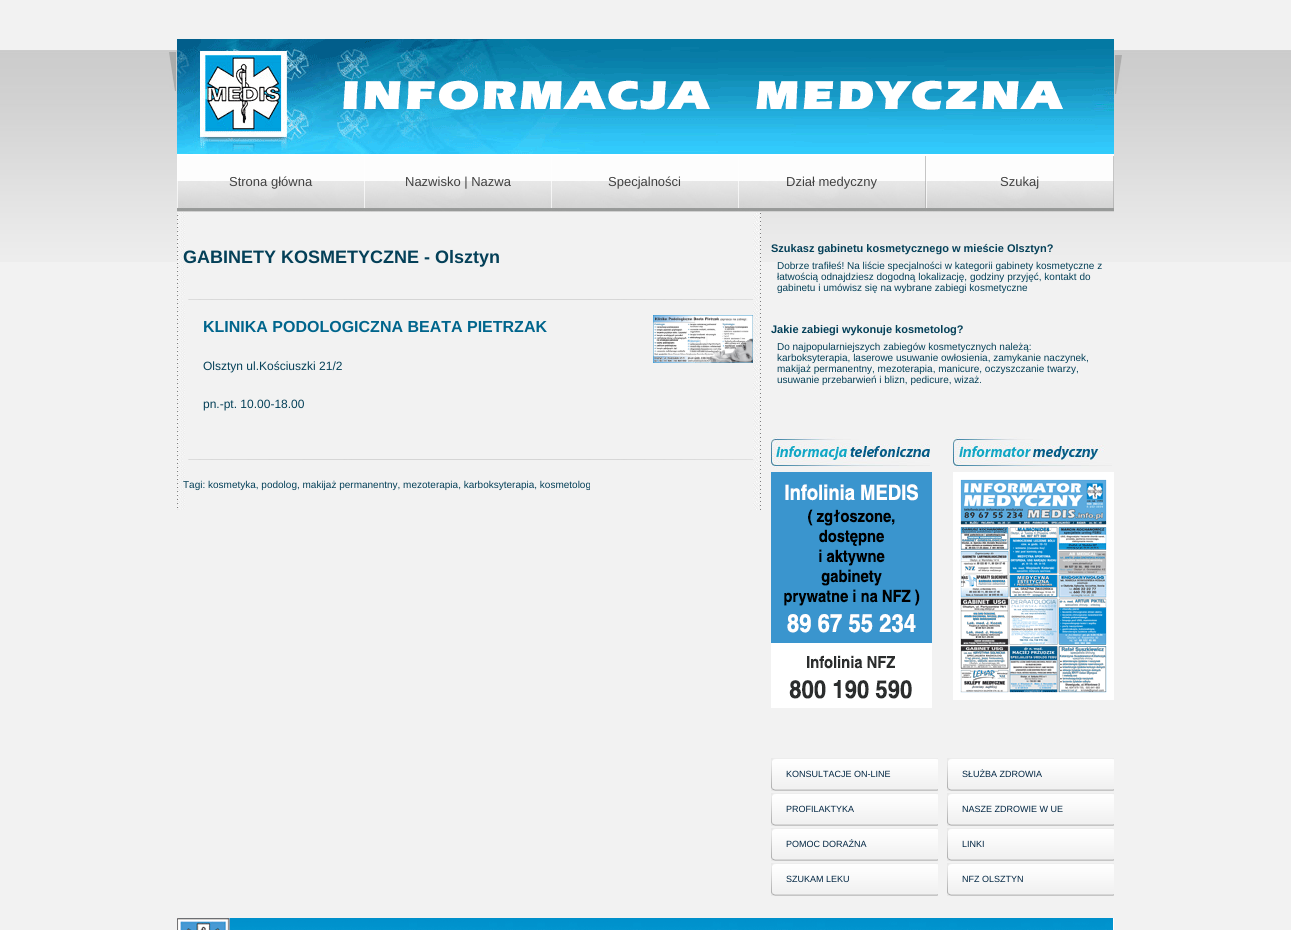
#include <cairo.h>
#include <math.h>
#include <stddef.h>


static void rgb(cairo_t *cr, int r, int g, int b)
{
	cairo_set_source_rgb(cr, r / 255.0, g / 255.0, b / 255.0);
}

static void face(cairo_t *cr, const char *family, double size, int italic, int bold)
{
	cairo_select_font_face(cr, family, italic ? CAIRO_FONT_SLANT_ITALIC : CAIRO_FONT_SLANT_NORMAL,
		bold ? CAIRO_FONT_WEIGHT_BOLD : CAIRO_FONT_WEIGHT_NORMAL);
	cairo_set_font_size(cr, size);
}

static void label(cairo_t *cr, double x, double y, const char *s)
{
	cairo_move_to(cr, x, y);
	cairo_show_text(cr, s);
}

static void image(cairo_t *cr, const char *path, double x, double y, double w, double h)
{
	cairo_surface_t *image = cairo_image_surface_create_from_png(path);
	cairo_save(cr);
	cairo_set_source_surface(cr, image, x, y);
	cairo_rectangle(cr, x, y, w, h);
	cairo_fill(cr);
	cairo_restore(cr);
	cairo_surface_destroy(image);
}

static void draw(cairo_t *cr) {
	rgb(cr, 242, 242, 242);
	cairo_paint(cr);
	image(cr, "image0.png", 0, 50, 1291, 212);
	image(cr, "image1.png", 177, 39, 937, 117);
	image(cr, "image2.png", 169, 52, 7, 39);
	image(cr, "image3.png", 1115, 55, 7, 39);
	image(cr, "image4.png", 177, 156, 187, 56);
	face(cr, "Liberation Sans", 13, 0, 0);
	rgb(cr, 65, 65, 65);
	label(cr, 229, 186, "Strona główna");
	image(cr, "image4.png", 364, 156, 187, 56);
	label(cr, 405, 186, "Nazwisko | Nazwa");
	image(cr, "image4.png", 551, 156, 187, 56);
	label(cr, 608, 186, "Specjalności");
	image(cr, "image5.png", 738, 156, 188, 56);
	label(cr, 786, 186, "Dział medyczny");
	image(cr, "image5.png", 926, 156, 188, 56);
	label(cr, 1000, 186, "Szukaj");
	image(cr, "image6.png", 177, 212, 584, 298);
	face(cr, "Liberation Sans", 18, 0, 1);
	rgb(cr, 4, 64, 88);
	label(cr, 183, 263, "GABINETY KOSMETYCZNE - Olsztyn");
	image(cr, "image7.png", 183, 296, 570, 9);
	face(cr, "Liberation Sans", 16, 0, 1);
	rgb(cr, 0, 101, 140);
	label(cr, 203, 332, "KLINIKA PODOLOGICZNA BEATA PIETRZAK");
	face(cr, "Liberation Sans", 12, 0, 0);
	rgb(cr, 4, 64, 88);
	label(cr, 203, 370, "Olsztyn ul.Kościuszki 21/2");
	label(cr, 203, 408, "pn.-pt. 10.00-18.00");
	image(cr, "image8.png", 653, 315, 100, 48);
	image(cr, "image7.png", 183, 456, 570, 9);
	face(cr, "Liberation Sans", 10, 0, 0);
	label(cr, 183, 488, "Tagi: kosmetyka, podolog, makijaż permanentny, mezoterapia, karboksyterapia, kosmetolog");
	face(cr, "Liberation Sans", 11, 0, 1);
	label(cr, 771, 252, "Szukasz gabinetu kosmetycznego w mieście Olsztyn?");
	face(cr, "Liberation Sans", 10, 0, 0);
	label(cr, 777, 269, "Dobrze trafiłeś! Na liście specjalności w kategorii gabinety kosmetyczne z");
	label(cr, 777, 280, "łatwością odnajdziesz dogodną lokalizację, godziny przyjęć, kontakt do");
	label(cr, 777, 291, "gabinetu i umówisz się na wybrane zabiegi kosmetyczne");
	face(cr, "Liberation Sans", 11, 0, 1);
	label(cr, 771, 333, "Jakie zabiegi wykonuje kosmetolog?");
	face(cr, "Liberation Sans", 10, 0, 0);
	label(cr, 777, 350, "Do najpopularniejszych zabiegów kosmetycznych należą:");
	label(cr, 777, 361, "karboksyterapia, laserowe usuwanie owłosienia, zamykanie naczynek,");
	label(cr, 777, 372, "makijaż permanentny, mezoterapia, manicure, oczyszczanie twarzy,");
	label(cr, 777, 383, "usuwanie przebarwień i blizn, pedicure, wizaż.");
	image(cr, "image9.png", 771, 436, 159, 32);
	image(cr, "image10.png", 771, 472, 161, 236);
	image(cr, "image11.png", 953, 436, 159, 32);
	image(cr, "image12.png", 953, 472, 161, 228);
	image(cr, "image13.png", 771, 758, 167, 33);
	face(cr, "Liberation Sans", 9, 0, 0);
	rgb(cr, 0, 37, 66);
	label(cr, 786, 777, "KONSULTACJE ON-LINE");
	image(cr, "image13.png", 771, 793, 167, 33);
	label(cr, 786, 812, "PROFILAKTYKA");
	image(cr, "image13.png", 771, 828, 167, 33);
	label(cr, 786, 847, "POMOC DORAŹNA");
	image(cr, "image13.png", 771, 863, 167, 33);
	label(cr, 786, 882, "SZUKAM LEKU");
	image(cr, "image13.png", 947, 758, 167, 33);
	label(cr, 962, 777, "SŁUŻBA ZDROWIA");
	image(cr, "image13.png", 947, 793, 167, 33);
	label(cr, 962, 812, "NASZE ZDROWIE W UE");
	image(cr, "image13.png", 947, 828, 167, 33);
	label(cr, 962, 847, "LINKI");
	image(cr, "image13.png", 947, 863, 167, 33);
	label(cr, 962, 882, "NFZ OLSZTYN");
	image(cr, "image14.png", 177, 918, 937, 12);
}

int main(void) {
	cairo_surface_t *surface = cairo_image_surface_create(CAIRO_FORMAT_RGB24, 1291, 930);
	cairo_t *cr = cairo_create(surface);
	cairo_font_options_t *options = cairo_font_options_create();
	cairo_font_options_set_hint_metrics(options, CAIRO_HINT_METRICS_OFF);
	cairo_font_options_set_hint_style(options, CAIRO_HINT_STYLE_NONE);
	cairo_set_font_options(cr, options);
	cairo_set_miter_limit(cr, 4);
	draw(cr);
	cairo_surface_write_to_png(surface, "render.png");
	cairo_font_options_destroy(options);
	cairo_destroy(cr);
	cairo_surface_destroy(surface);
	return 0;
}
